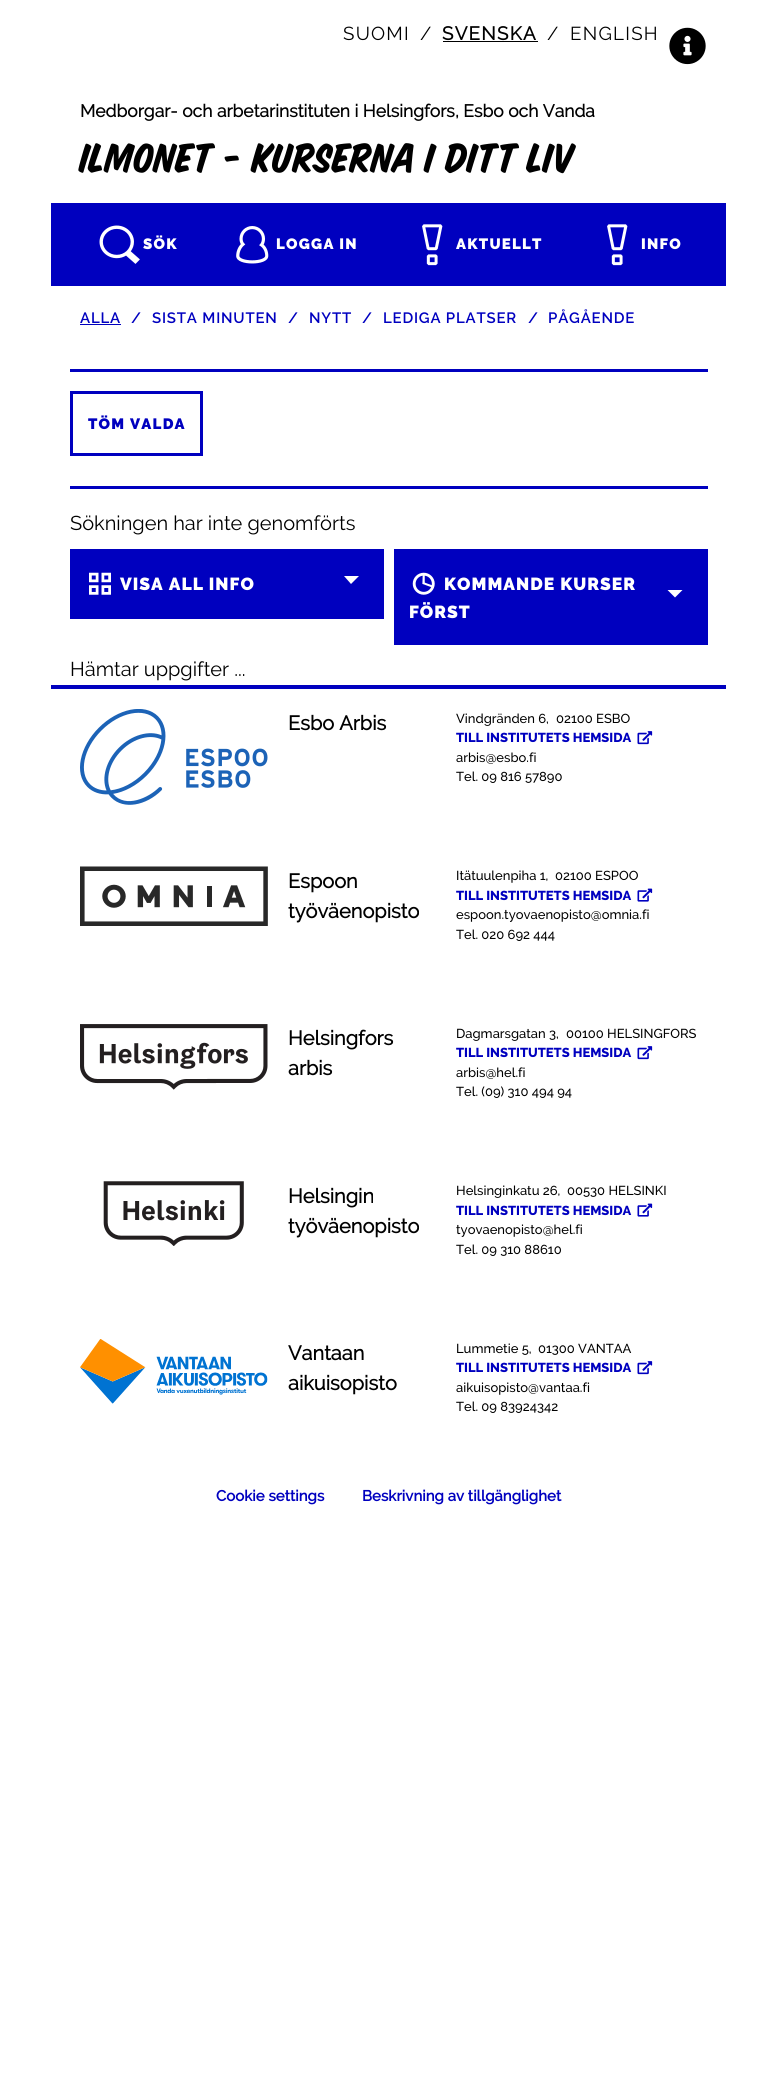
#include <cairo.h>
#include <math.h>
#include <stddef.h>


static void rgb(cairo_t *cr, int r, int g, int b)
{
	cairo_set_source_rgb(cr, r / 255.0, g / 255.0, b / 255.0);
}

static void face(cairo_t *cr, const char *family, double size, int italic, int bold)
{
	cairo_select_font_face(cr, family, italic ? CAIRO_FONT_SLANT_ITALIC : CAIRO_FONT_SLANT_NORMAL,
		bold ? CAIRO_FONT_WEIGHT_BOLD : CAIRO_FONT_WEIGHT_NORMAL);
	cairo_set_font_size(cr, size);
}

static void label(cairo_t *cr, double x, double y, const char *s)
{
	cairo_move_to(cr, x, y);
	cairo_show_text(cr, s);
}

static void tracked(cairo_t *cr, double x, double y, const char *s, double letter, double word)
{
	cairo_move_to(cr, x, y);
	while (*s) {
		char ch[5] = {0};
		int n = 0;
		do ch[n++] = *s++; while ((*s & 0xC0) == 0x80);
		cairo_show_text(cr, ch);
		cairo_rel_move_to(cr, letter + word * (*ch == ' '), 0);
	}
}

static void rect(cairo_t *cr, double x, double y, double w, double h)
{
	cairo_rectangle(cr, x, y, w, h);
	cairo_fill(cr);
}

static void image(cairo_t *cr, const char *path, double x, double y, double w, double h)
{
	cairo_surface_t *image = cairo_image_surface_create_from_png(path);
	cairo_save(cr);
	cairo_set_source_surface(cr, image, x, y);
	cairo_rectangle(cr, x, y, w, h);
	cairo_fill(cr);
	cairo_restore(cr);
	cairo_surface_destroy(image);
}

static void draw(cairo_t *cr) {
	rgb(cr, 255, 255, 255);
	cairo_paint(cr);
	face(cr, "Raleway", 18.75, 0, 0);
	rgb(cr, 0, 0, 0);
	tracked(cr, 343, 40, "SUOMI", 1.25, 0);
	tracked(cr, 420, 40, "/", 1.25, 0);
	face(cr, "Raleway", 18.75, 0, 1);
	tracked(cr, 442, 40, "SVENSKA", 1.25, 0);
	rect(cr, 443, 41, 95, 1);
	face(cr, "Raleway", 18.75, 0, 0);
	tracked(cr, 547, 40, "/", 1.25, 0);
	tracked(cr, 570, 40, "ENGLISH", 1.25, 0);
	image(cr, "image0.png", 669, 27, 37, 38);
	face(cr, "Raleway", 17.5, 0, 1);
	label(cr, 80, 117, "Medborgar- och arbetarinstituten i Helsingfors, Esbo och Vanda");
	face(cr, "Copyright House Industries", 45, 0, 0);
	label(cr, 80, 172, "ILMONET - KURSERNA I DITT LIV");
	rgb(cr, 0, 0, 191);
	rect(cr, 51, 203, 675, 83);
	image(cr, "image1.png", 99, 225, 41, 39);
	face(cr, "Raleway Black", 15, 0, 0);
	rgb(cr, 255, 255, 255);
	tracked(cr, 143, 249, "SÖK", 1.25, 0);
	image(cr, "image2.png", 236, 226, 33, 38);
	tracked(cr, 276, 249, "LOGGA IN", 1.25, 0);
	image(cr, "image3.png", 422, 224, 21, 42);
	tracked(cr, 456, 249, "AKTUELLT", 1.25, 0);
	image(cr, "image3.png", 607, 224, 21, 42);
	tracked(cr, 641, 249, "INFO", 1.25, 0);
	face(cr, "Raleway SemiBold", 15, 0, 0);
	rgb(cr, 0, 0, 191);
	tracked(cr, 80, 323, "ALLA", 0.8, 0);
	rect(cr, 80, 324, 41, 1);
	tracked(cr, 131, 323, "/", 0.8, 0);
	tracked(cr, 152, 323, "SISTA MINUTEN", 0.8, 0);
	tracked(cr, 288, 323, "/", 0.8, 0);
	tracked(cr, 309, 323, "NYTT", 0.8, 0);
	tracked(cr, 362, 323, "/", 0.8, 0);
	tracked(cr, 383, 323, "LEDIGA PLATSER", 0.8, 0);
	tracked(cr, 528, 323, "/", 0.8, 0);
	tracked(cr, 548, 323, "PÅGÅENDE", 0.8, 0);
	rect(cr, 70, 369, 638, 3);
	cairo_rectangle(cr, 71.5, 392.5, 130, 62);
	cairo_set_line_width(cr, 3);
	cairo_stroke(cr);
	face(cr, "Raleway Black", 15, 0, 0);
	tracked(cr, 88, 429, "TÖM VALDA", 1.25, 0);
	rect(cr, 70, 486, 638, 3);
	face(cr, "Raleway", 20, 0, 0);
	rgb(cr, 0, 0, 0);
	label(cr, 70, 530, "Sökningen har inte genomförts");
	rgb(cr, 0, 0, 191);
	rect(cr, 70, 549, 314, 70);
	rgb(cr, 255, 255, 255);
	cairo_new_path(cr);
	cairo_move_to(cr, 344, 576);
	cairo_line_to(cr, 359, 576);
	cairo_line_to(cr, 351, 584);
	cairo_close_path(cr);
	cairo_fill(cr);
	image(cr, "image4.png", 89, 572, 22, 23);
	face(cr, "Raleway Black", 17.5, 0, 0);
	tracked(cr, 120, 590, "VISA ALL INFO", 1, 0);
	rgb(cr, 0, 0, 191);
	rect(cr, 394, 549, 314, 96);
	rgb(cr, 255, 255, 255);
	cairo_new_path(cr);
	cairo_move_to(cr, 667.5, 590);
	cairo_line_to(cr, 682.5, 590);
	cairo_line_to(cr, 675, 597.5);
	cairo_close_path(cr);
	cairo_fill(cr);
	image(cr, "image5.png", 412, 572, 23, 23);
	tracked(cr, 444, 590, "KOMMANDE KURSER", 1, 0);
	tracked(cr, 409, 618, "FÖRST", 1, 0);
	face(cr, "Raleway", 20, 0, 0);
	rgb(cr, 0, 0, 0);
	label(cr, 70, 676, "Hämtar uppgifter ...");
	rgb(cr, 0, 0, 191);
	rect(cr, 51, 685, 675, 4);
	image(cr, "image6.png", 80, 709, 188, 96);
	face(cr, "Raleway", 20, 0, 1);
	rgb(cr, 0, 0, 0);
	label(cr, 288, 730, "Esbo Arbis");
	face(cr, "Raleway Medium", 13, 0, 0);
	label(cr, 456, 723, "Vindgränden 6,");
	label(cr, 556, 723, "02100 ESBO");
	face(cr, "Raleway ExtraBold", 13, 0, 0);
	rgb(cr, 0, 0, 191);
	label(cr, 456, 742, "TILL INSTITUTETS HEMSIDA");
	image(cr, "image7.png", 637, 731, 16, 14);
	face(cr, "Raleway Medium", 13, 0, 0);
	rgb(cr, 0, 0, 0);
	label(cr, 456, 762, "arbis@esbo.fi");
	label(cr, 456, 781, "Tel. 09 816 57890");
	image(cr, "image8.png", 80, 866, 188, 60);
	face(cr, "Raleway", 20, 0, 1);
	label(cr, 288, 888, "Espoon");
	label(cr, 288, 918, "työväenopisto");
	face(cr, "Raleway Medium", 13, 0, 0);
	label(cr, 456, 880, "Itätuulenpiha 1,");
	label(cr, 555, 880, "02100 ESPOO");
	face(cr, "Raleway ExtraBold", 13, 0, 0);
	rgb(cr, 0, 0, 191);
	label(cr, 456, 900, "TILL INSTITUTETS HEMSIDA");
	image(cr, "image9.png", 637, 888, 16, 14);
	face(cr, "Raleway Medium", 13, 0, 0);
	rgb(cr, 0, 0, 0);
	label(cr, 456, 919, "espoon.tyovaenopisto@omnia.fi");
	label(cr, 456, 939, "Tel. 020 692 444");
	image(cr, "image10.png", 80, 1024, 188, 66);
	face(cr, "Raleway", 20, 0, 1);
	label(cr, 288, 1045, "Helsingfors");
	label(cr, 288, 1075, "arbis");
	face(cr, "Raleway Medium", 13, 0, 0);
	label(cr, 456, 1038, "Dagmarsgatan 3,");
	label(cr, 566, 1038, "00100 HELSINGFORS");
	face(cr, "Raleway ExtraBold", 13, 0, 0);
	rgb(cr, 0, 0, 191);
	label(cr, 456, 1057, "TILL INSTITUTETS HEMSIDA");
	image(cr, "image7.png", 637, 1046, 16, 14);
	face(cr, "Raleway Medium", 13, 0, 0);
	rgb(cr, 0, 0, 0);
	label(cr, 456, 1077, "arbis@hel.fi");
	label(cr, 456, 1096, "Tel. (09) 310 494 94");
	image(cr, "image11.png", 103, 1181, 141, 65);
	face(cr, "Raleway", 20, 0, 1);
	label(cr, 288, 1203, "Helsingin");
	label(cr, 288, 1233, "työväenopisto");
	face(cr, "Raleway Medium", 13, 0, 0);
	label(cr, 456, 1195, "Helsinginkatu 26,");
	label(cr, 567, 1195, "00530 HELSINKI");
	face(cr, "Raleway ExtraBold", 13, 0, 0);
	rgb(cr, 0, 0, 191);
	label(cr, 456, 1215, "TILL INSTITUTETS HEMSIDA");
	image(cr, "image9.png", 637, 1203, 16, 14);
	face(cr, "Raleway Medium", 13, 0, 0);
	rgb(cr, 0, 0, 0);
	label(cr, 456, 1234, "tyovaenopisto@hel.fi");
	label(cr, 456, 1254, "Tel. 09 310 88610");
	image(cr, "image12.png", 80, 1339, 188, 65);
	face(cr, "Raleway", 20, 0, 1);
	label(cr, 288, 1360, "Vantaan");
	label(cr, 288, 1390, "aikuisopisto");
	face(cr, "Raleway Medium", 13, 0, 0);
	label(cr, 456, 1353, "Lummetie 5,");
	label(cr, 538, 1353, "01300 VANTAA");
	face(cr, "Raleway ExtraBold", 13, 0, 0);
	rgb(cr, 0, 0, 191);
	label(cr, 456, 1372, "TILL INSTITUTETS HEMSIDA");
	image(cr, "image7.png", 637, 1361, 16, 14);
	face(cr, "Raleway Medium", 13, 0, 0);
	rgb(cr, 0, 0, 0);
	label(cr, 456, 1392, "aikuisopisto@vantaa.fi");
	label(cr, 456, 1411, "Tel. 09 83924342");
	face(cr, "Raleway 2", 15, 0, 1);
	rgb(cr, 0, 0, 191);
	label(cr, 216, 1501, "Cookie settings");
	label(cr, 362, 1501, "Beskrivning av tillgänglighet");
}

int main(void) {
	cairo_surface_t *surface = cairo_image_surface_create(CAIRO_FORMAT_RGB24, 777, 2090);
	cairo_t *cr = cairo_create(surface);
	cairo_font_options_t *options = cairo_font_options_create();
	cairo_font_options_set_hint_metrics(options, CAIRO_HINT_METRICS_OFF);
	cairo_font_options_set_hint_style(options, CAIRO_HINT_STYLE_NONE);
	cairo_set_font_options(cr, options);
	cairo_set_miter_limit(cr, 4);
	draw(cr);
	cairo_surface_write_to_png(surface, "render.png");
	cairo_font_options_destroy(options);
	cairo_destroy(cr);
	cairo_surface_destroy(surface);
	return 0;
}
